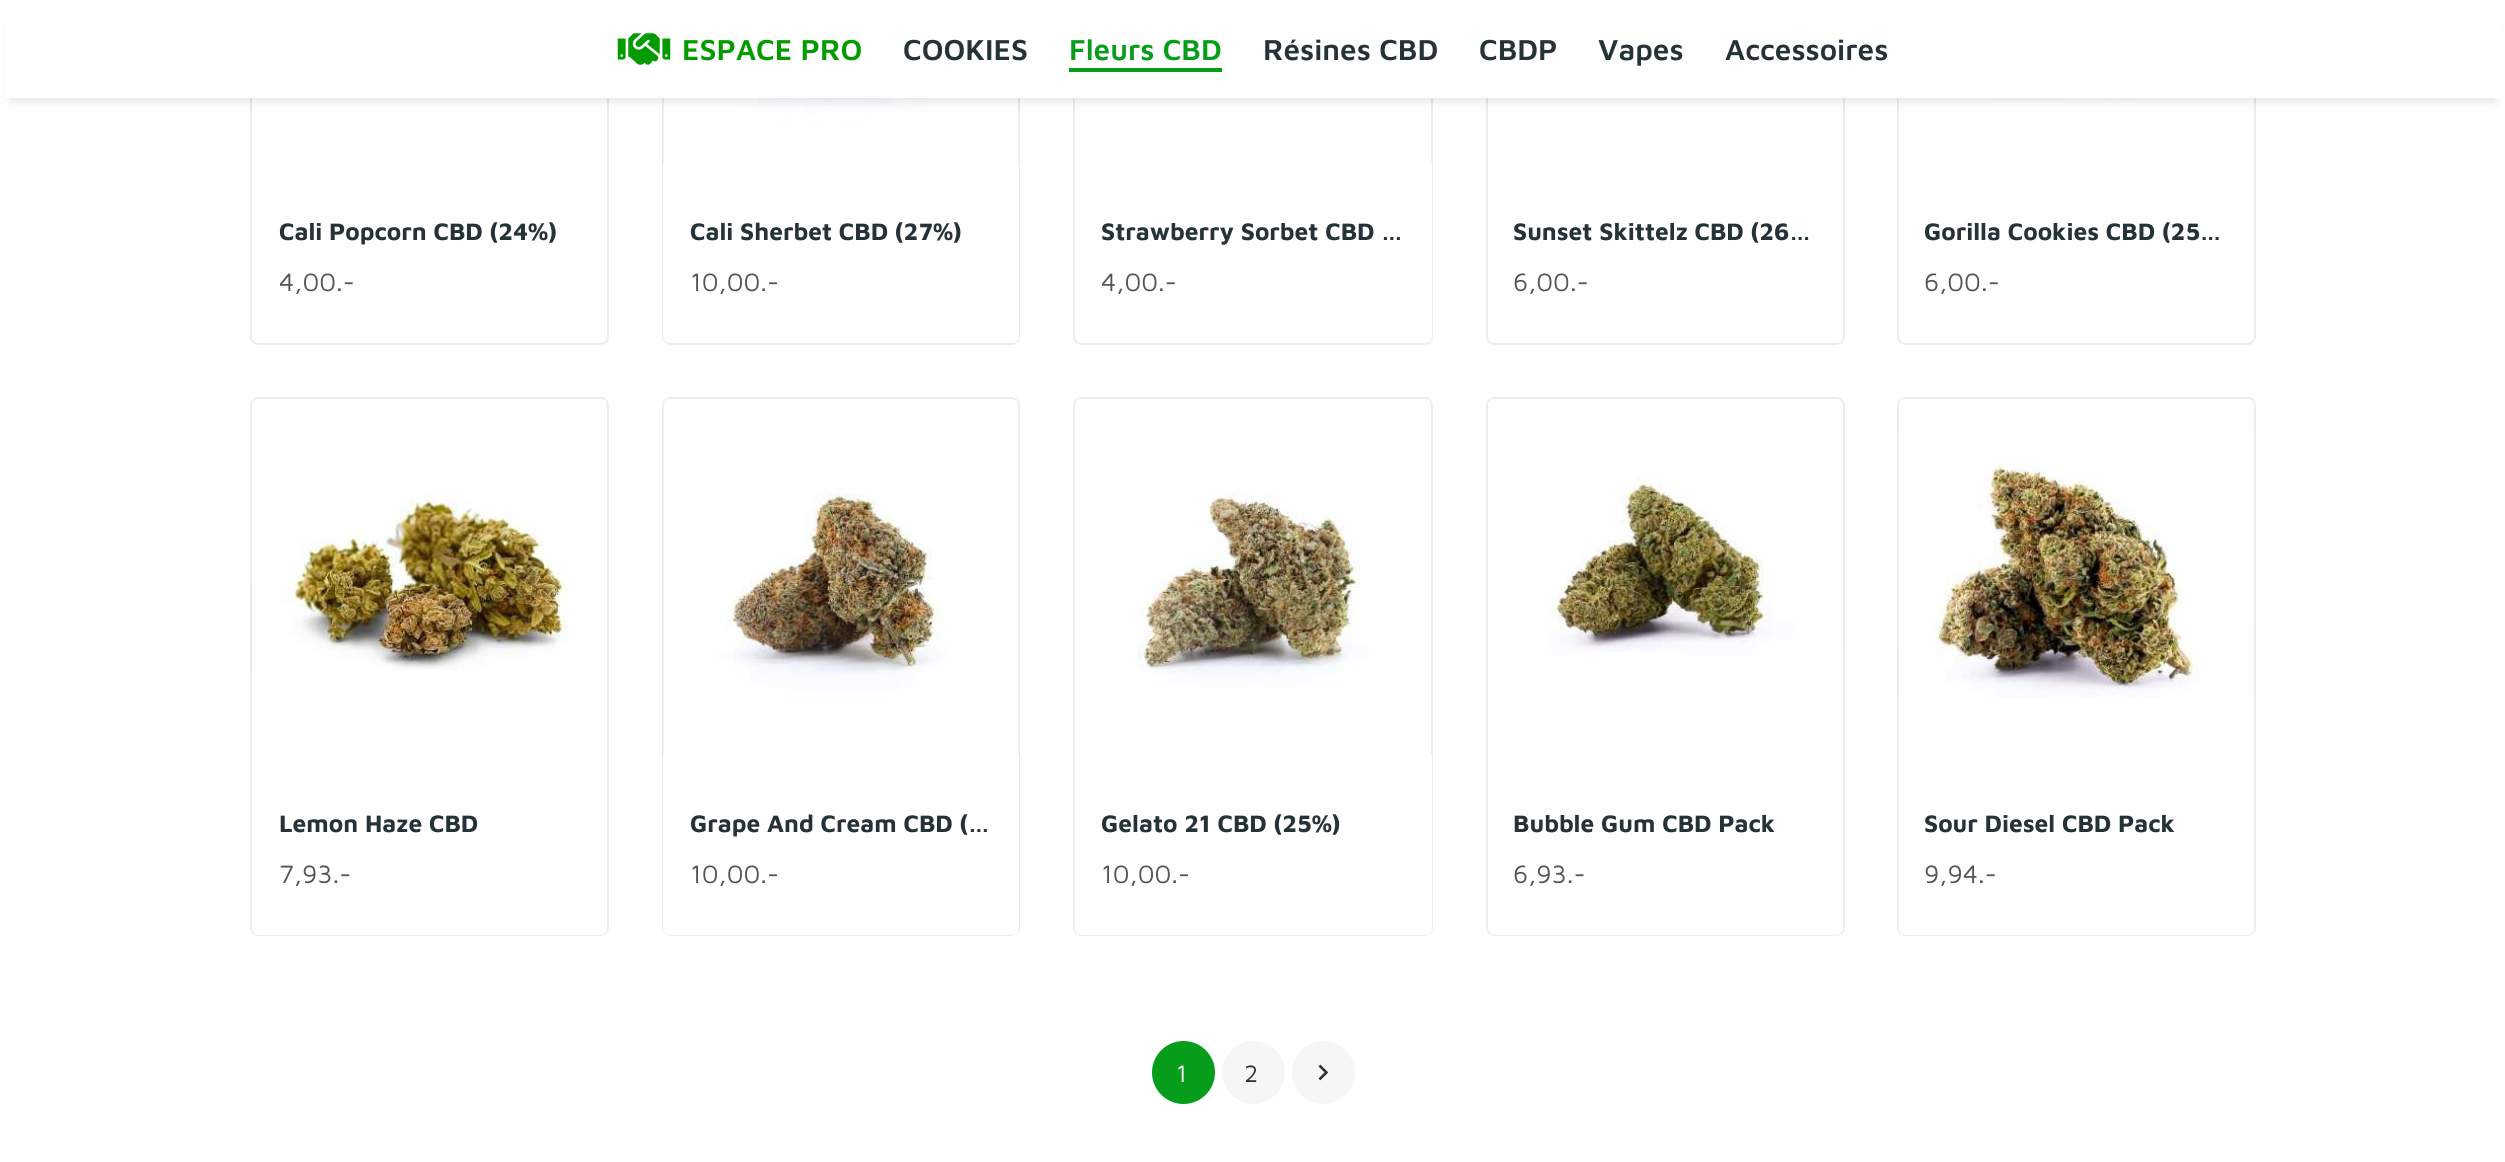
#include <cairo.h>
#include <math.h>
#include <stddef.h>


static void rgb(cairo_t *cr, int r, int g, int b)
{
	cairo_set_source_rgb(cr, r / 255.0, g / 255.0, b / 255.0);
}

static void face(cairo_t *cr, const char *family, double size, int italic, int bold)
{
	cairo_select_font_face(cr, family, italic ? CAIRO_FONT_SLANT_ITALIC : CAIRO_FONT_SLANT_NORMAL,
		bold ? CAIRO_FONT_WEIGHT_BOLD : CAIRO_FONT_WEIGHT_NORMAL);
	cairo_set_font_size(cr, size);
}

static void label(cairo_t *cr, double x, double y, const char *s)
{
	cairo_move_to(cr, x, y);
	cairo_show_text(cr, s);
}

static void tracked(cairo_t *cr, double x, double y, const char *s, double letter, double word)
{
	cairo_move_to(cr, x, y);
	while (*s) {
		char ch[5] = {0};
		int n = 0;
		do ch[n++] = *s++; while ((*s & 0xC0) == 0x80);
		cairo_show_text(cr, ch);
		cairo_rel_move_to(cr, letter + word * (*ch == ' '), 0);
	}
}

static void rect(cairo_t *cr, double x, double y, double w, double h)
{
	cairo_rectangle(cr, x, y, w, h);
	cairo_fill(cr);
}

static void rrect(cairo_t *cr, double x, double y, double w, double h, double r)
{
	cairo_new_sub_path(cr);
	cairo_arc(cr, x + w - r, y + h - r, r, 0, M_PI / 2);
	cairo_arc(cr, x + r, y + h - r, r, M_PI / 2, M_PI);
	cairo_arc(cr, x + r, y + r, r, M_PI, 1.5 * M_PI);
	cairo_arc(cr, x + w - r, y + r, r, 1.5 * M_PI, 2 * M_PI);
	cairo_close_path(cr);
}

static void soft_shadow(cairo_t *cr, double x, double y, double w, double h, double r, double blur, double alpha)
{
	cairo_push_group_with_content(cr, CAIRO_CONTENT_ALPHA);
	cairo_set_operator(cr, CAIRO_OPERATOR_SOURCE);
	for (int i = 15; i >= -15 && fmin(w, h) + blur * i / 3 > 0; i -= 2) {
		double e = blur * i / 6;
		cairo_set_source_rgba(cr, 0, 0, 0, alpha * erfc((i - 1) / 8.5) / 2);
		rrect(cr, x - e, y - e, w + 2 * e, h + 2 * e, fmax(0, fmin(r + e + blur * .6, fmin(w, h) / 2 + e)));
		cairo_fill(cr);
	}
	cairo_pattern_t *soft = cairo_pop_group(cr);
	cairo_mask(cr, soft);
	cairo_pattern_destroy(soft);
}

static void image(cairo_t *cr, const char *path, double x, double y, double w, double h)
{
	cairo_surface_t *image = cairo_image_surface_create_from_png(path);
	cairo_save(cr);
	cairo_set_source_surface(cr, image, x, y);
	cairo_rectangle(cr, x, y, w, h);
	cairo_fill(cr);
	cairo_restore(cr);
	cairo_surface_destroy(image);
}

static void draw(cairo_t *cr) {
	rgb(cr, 255, 255, 255);
	cairo_paint(cr);
	rrect(cr, 251, -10, 357, 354, 8);
	rgb(cr, 235, 235, 235);
	cairo_stroke(cr);
	rrect(cr, 663, -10, 356, 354, 8);
	cairo_stroke(cr);
	image(cr, "image1.png", 663, 98, 300, 64);
	rrect(cr, 1074, -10, 358, 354, 8);
	cairo_stroke(cr);
	rrect(cr, 1487, -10, 357, 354, 8);
	cairo_stroke(cr);
	rrect(cr, 1898, -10, 357, 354, 8);
	cairo_stroke(cr);
	image(cr, "image2.png", 1946, 98, 254, 2);
	rgb(cr, 0, 0, 0);
	soft_shadow(cr, 11, 25, 2485, 77, 0, 5, 0.1);
	rgb(cr, 255, 255, 255);
	rect(cr, 5, 0, 2497, 98);
	image(cr, "image0.png", 617, 33, 54, 32);
	face(cr, "Maven Pro SemiBold", 29.75, 0, 0);
	rgb(cr, 3, 155, 0);
	label(cr, 682, 60, "ESPACE PRO");
	rgb(cr, 37, 50, 55);
	label(cr, 903, 60, "COOKIES");
	rgb(cr, 5, 157, 25);
	rect(cr, 1069, 68, 153, 4);
	label(cr, 1069, 60, "Fleurs CBD");
	rgb(cr, 37, 50, 55);
	label(cr, 1263, 60, "Résines CBD");
	label(cr, 1479, 60, "CBDP");
	label(cr, 1598, 60, "Vapes");
	label(cr, 1725, 60, "Accessoires");
	rgb(cr, 255, 255, 255);
	cairo_new_path(cr);
	cairo_move_to(cr, 252, 163);
	cairo_line_to(cr, 607, 163);
	cairo_line_to(cr, 607, 336);
	cairo_curve_to(cr, 607, 340, 604, 343, 600, 343);
	cairo_line_to(cr, 259, 343);
	cairo_curve_to(cr, 255, 343, 252, 340, 252, 336);
	cairo_close_path(cr);
	cairo_fill(cr);
	face(cr, "Maven Pro", 24.5, 0, 1);
	rgb(cr, 37, 50, 55);
	label(cr, 279, 240, "Cali Popcorn CBD (24%)");
	face(cr, "Maven Pro", 26, 0, 0);
	rgb(cr, 85, 85, 85);
	label(cr, 279, 291, "4,00.-");
	rgb(cr, 255, 255, 255);
	cairo_new_path(cr);
	cairo_move_to(cr, 663, 163);
	cairo_line_to(cr, 1019, 163);
	cairo_line_to(cr, 1019, 336);
	cairo_curve_to(cr, 1019, 340, 1016, 343, 1012, 343);
	cairo_line_to(cr, 670, 343);
	cairo_curve_to(cr, 666, 343, 663, 340, 663, 336);
	cairo_close_path(cr);
	cairo_fill(cr);
	face(cr, "Maven Pro", 24.5, 0, 1);
	rgb(cr, 37, 50, 55);
	label(cr, 690, 240, "Cali Sherbet CBD (27%)");
	face(cr, "Maven Pro", 26, 0, 0);
	rgb(cr, 85, 85, 85);
	label(cr, 690, 291, "10,00.-");
	rgb(cr, 255, 255, 255);
	cairo_new_path(cr);
	cairo_move_to(cr, 1075, 163);
	cairo_line_to(cr, 1432, 163);
	cairo_line_to(cr, 1432, 336);
	cairo_curve_to(cr, 1432, 340, 1429, 343, 1425, 343);
	cairo_line_to(cr, 1082, 343);
	cairo_curve_to(cr, 1078, 343, 1075, 340, 1075, 336);
	cairo_close_path(cr);
	cairo_fill(cr);
	face(cr, "Maven Pro", 24.5, 0, 1);
	rgb(cr, 37, 50, 55);
	label(cr, 1101, 240, "Strawberry Sorbet CBD …");
	face(cr, "Maven Pro", 26, 0, 0);
	rgb(cr, 85, 85, 85);
	label(cr, 1101, 291, "4,00.-");
	rgb(cr, 255, 255, 255);
	cairo_new_path(cr);
	cairo_move_to(cr, 1488, 163);
	cairo_line_to(cr, 1843, 163);
	cairo_line_to(cr, 1843, 336);
	cairo_curve_to(cr, 1843, 340, 1840, 343, 1836, 343);
	cairo_line_to(cr, 1495, 343);
	cairo_curve_to(cr, 1491, 343, 1488, 340, 1488, 336);
	cairo_close_path(cr);
	cairo_fill(cr);
	face(cr, "Maven Pro", 24.5, 0, 1);
	rgb(cr, 37, 50, 55);
	label(cr, 1513, 240, "Sunset Skittelz CBD (26…");
	face(cr, "Maven Pro", 26, 0, 0);
	rgb(cr, 85, 85, 85);
	label(cr, 1513, 291, "6,00.-");
	rgb(cr, 255, 255, 255);
	cairo_new_path(cr);
	cairo_move_to(cr, 1899, 163);
	cairo_line_to(cr, 2254, 163);
	cairo_line_to(cr, 2254, 336);
	cairo_curve_to(cr, 2254, 340, 2251, 343, 2247, 343);
	cairo_line_to(cr, 1906, 343);
	cairo_curve_to(cr, 1902, 343, 1899, 340, 1899, 336);
	cairo_close_path(cr);
	cairo_fill(cr);
	face(cr, "Maven Pro", 24.5, 0, 1);
	rgb(cr, 37, 50, 55);
	label(cr, 1924, 240, "Gorilla Cookies CBD (25…");
	face(cr, "Maven Pro", 26, 0, 0);
	rgb(cr, 85, 85, 85);
	label(cr, 1924, 291, "6,00.-");
	rrect(cr, 251, 398, 357, 537, 8);
	rgb(cr, 235, 235, 235);
	cairo_stroke(cr);
	image(cr, "image3.png", 252, 399, 355, 271);
	rgb(cr, 255, 255, 255);
	cairo_new_path(cr);
	cairo_move_to(cr, 252, 754);
	cairo_line_to(cr, 607, 754);
	cairo_line_to(cr, 607, 928);
	cairo_curve_to(cr, 607, 932, 604, 935, 600, 935);
	cairo_line_to(cr, 259, 935);
	cairo_curve_to(cr, 255, 935, 252, 932, 252, 928);
	cairo_close_path(cr);
	cairo_fill(cr);
	face(cr, "Maven Pro", 24.5, 0, 1);
	rgb(cr, 37, 50, 55);
	label(cr, 279, 832, "Lemon Haze CBD");
	face(cr, "Maven Pro", 26, 0, 0);
	rgb(cr, 85, 85, 85);
	label(cr, 279, 883, "7,93.-");
	rrect(cr, 663, 398, 356, 537, 8);
	rgb(cr, 235, 235, 235);
	cairo_stroke(cr);
	image(cr, "image4.png", 663, 399, 355, 355);
	rgb(cr, 255, 255, 255);
	cairo_new_path(cr);
	cairo_move_to(cr, 663, 754);
	cairo_line_to(cr, 1019, 754);
	cairo_line_to(cr, 1019, 928);
	cairo_curve_to(cr, 1019, 932, 1016, 935, 1012, 935);
	cairo_line_to(cr, 670, 935);
	cairo_curve_to(cr, 666, 935, 663, 932, 663, 928);
	cairo_close_path(cr);
	cairo_fill(cr);
	face(cr, "Maven Pro", 24.5, 0, 1);
	rgb(cr, 37, 50, 55);
	label(cr, 690, 832, "Grape And Cream CBD (…");
	face(cr, "Maven Pro", 26, 0, 0);
	rgb(cr, 85, 85, 85);
	label(cr, 690, 883, "10,00.-");
	rrect(cr, 1074, 398, 358, 537, 8);
	rgb(cr, 235, 235, 235);
	cairo_stroke(cr);
	image(cr, "image5.png", 1075, 399, 356, 284);
	rgb(cr, 255, 255, 255);
	cairo_new_path(cr);
	cairo_move_to(cr, 1075, 754);
	cairo_line_to(cr, 1432, 754);
	cairo_line_to(cr, 1432, 928);
	cairo_curve_to(cr, 1432, 932, 1429, 935, 1425, 935);
	cairo_line_to(cr, 1082, 935);
	cairo_curve_to(cr, 1078, 935, 1075, 932, 1075, 928);
	cairo_close_path(cr);
	cairo_fill(cr);
	face(cr, "Maven Pro", 24.5, 0, 1);
	rgb(cr, 37, 50, 55);
	label(cr, 1101, 832, "Gelato 21 CBD (25%)");
	face(cr, "Maven Pro", 26, 0, 0);
	rgb(cr, 85, 85, 85);
	label(cr, 1101, 883, "10,00.-");
	rrect(cr, 1487, 398, 357, 537, 8);
	rgb(cr, 235, 235, 235);
	cairo_stroke(cr);
	image(cr, "image6.png", 1488, 399, 354, 253);
	rgb(cr, 255, 255, 255);
	cairo_new_path(cr);
	cairo_move_to(cr, 1488, 754);
	cairo_line_to(cr, 1843, 754);
	cairo_line_to(cr, 1843, 928);
	cairo_curve_to(cr, 1843, 932, 1840, 935, 1836, 935);
	cairo_line_to(cr, 1495, 935);
	cairo_curve_to(cr, 1491, 935, 1488, 932, 1488, 928);
	cairo_close_path(cr);
	cairo_fill(cr);
	face(cr, "Maven Pro", 24.5, 0, 1);
	rgb(cr, 37, 50, 55);
	label(cr, 1513, 832, "Bubble Gum CBD Pack");
	face(cr, "Maven Pro", 26, 0, 0);
	rgb(cr, 85, 85, 85);
	label(cr, 1513, 883, "6,93.-");
	rrect(cr, 1898, 398, 357, 537, 8);
	rgb(cr, 235, 235, 235);
	cairo_stroke(cr);
	image(cr, "image7.png", 1899, 399, 355, 299);
	rgb(cr, 255, 255, 255);
	cairo_new_path(cr);
	cairo_move_to(cr, 1899, 754);
	cairo_line_to(cr, 2254, 754);
	cairo_line_to(cr, 2254, 928);
	cairo_curve_to(cr, 2254, 932, 2251, 935, 2247, 935);
	cairo_line_to(cr, 1906, 935);
	cairo_curve_to(cr, 1902, 935, 1899, 932, 1899, 928);
	cairo_close_path(cr);
	cairo_fill(cr);
	face(cr, "Maven Pro", 24.5, 0, 1);
	rgb(cr, 37, 50, 55);
	label(cr, 1924, 832, "Sour Diesel CBD Pack");
	face(cr, "Maven Pro", 26, 0, 0);
	rgb(cr, 85, 85, 85);
	label(cr, 1924, 883, "9,94.-");
	rgb(cr, 5, 157, 25);
	cairo_new_path(cr);
	cairo_arc(cr, 1183.5, 1072.5, 31.5, 0, 2 * M_PI);
	cairo_fill(cr);
	face(cr, "Maven Pro", 24.5, 0, 0);
	rgb(cr, 255, 255, 255);
	tracked(cr, 1176, 1082, "1", 4, 0);
	rgb(cr, 246, 246, 246);
	cairo_new_path(cr);
	cairo_arc(cr, 1253.5, 1072.5, 31.5, 0, 2 * M_PI);
	cairo_fill(cr);
	rgb(cr, 37, 50, 55);
	tracked(cr, 1244, 1082, "2", 4, 0);
	rgb(cr, 246, 246, 246);
	cairo_new_path(cr);
	cairo_arc(cr, 1323.5, 1072.5, 31.5, 0, 2 * M_PI);
	cairo_fill(cr);
	image(cr, "image8.png", 1318, 1064, 11, 17);
}

int main(void) {
	cairo_surface_t *surface = cairo_image_surface_create(CAIRO_FORMAT_RGB24, 2505, 1162);
	cairo_t *cr = cairo_create(surface);
	cairo_font_options_t *options = cairo_font_options_create();
	cairo_font_options_set_hint_metrics(options, CAIRO_HINT_METRICS_OFF);
	cairo_font_options_set_hint_style(options, CAIRO_HINT_STYLE_NONE);
	cairo_set_font_options(cr, options);
	cairo_set_miter_limit(cr, 4);
	draw(cr);
	cairo_surface_write_to_png(surface, "render.png");
	cairo_font_options_destroy(options);
	cairo_destroy(cr);
	cairo_surface_destroy(surface);
	return 0;
}
